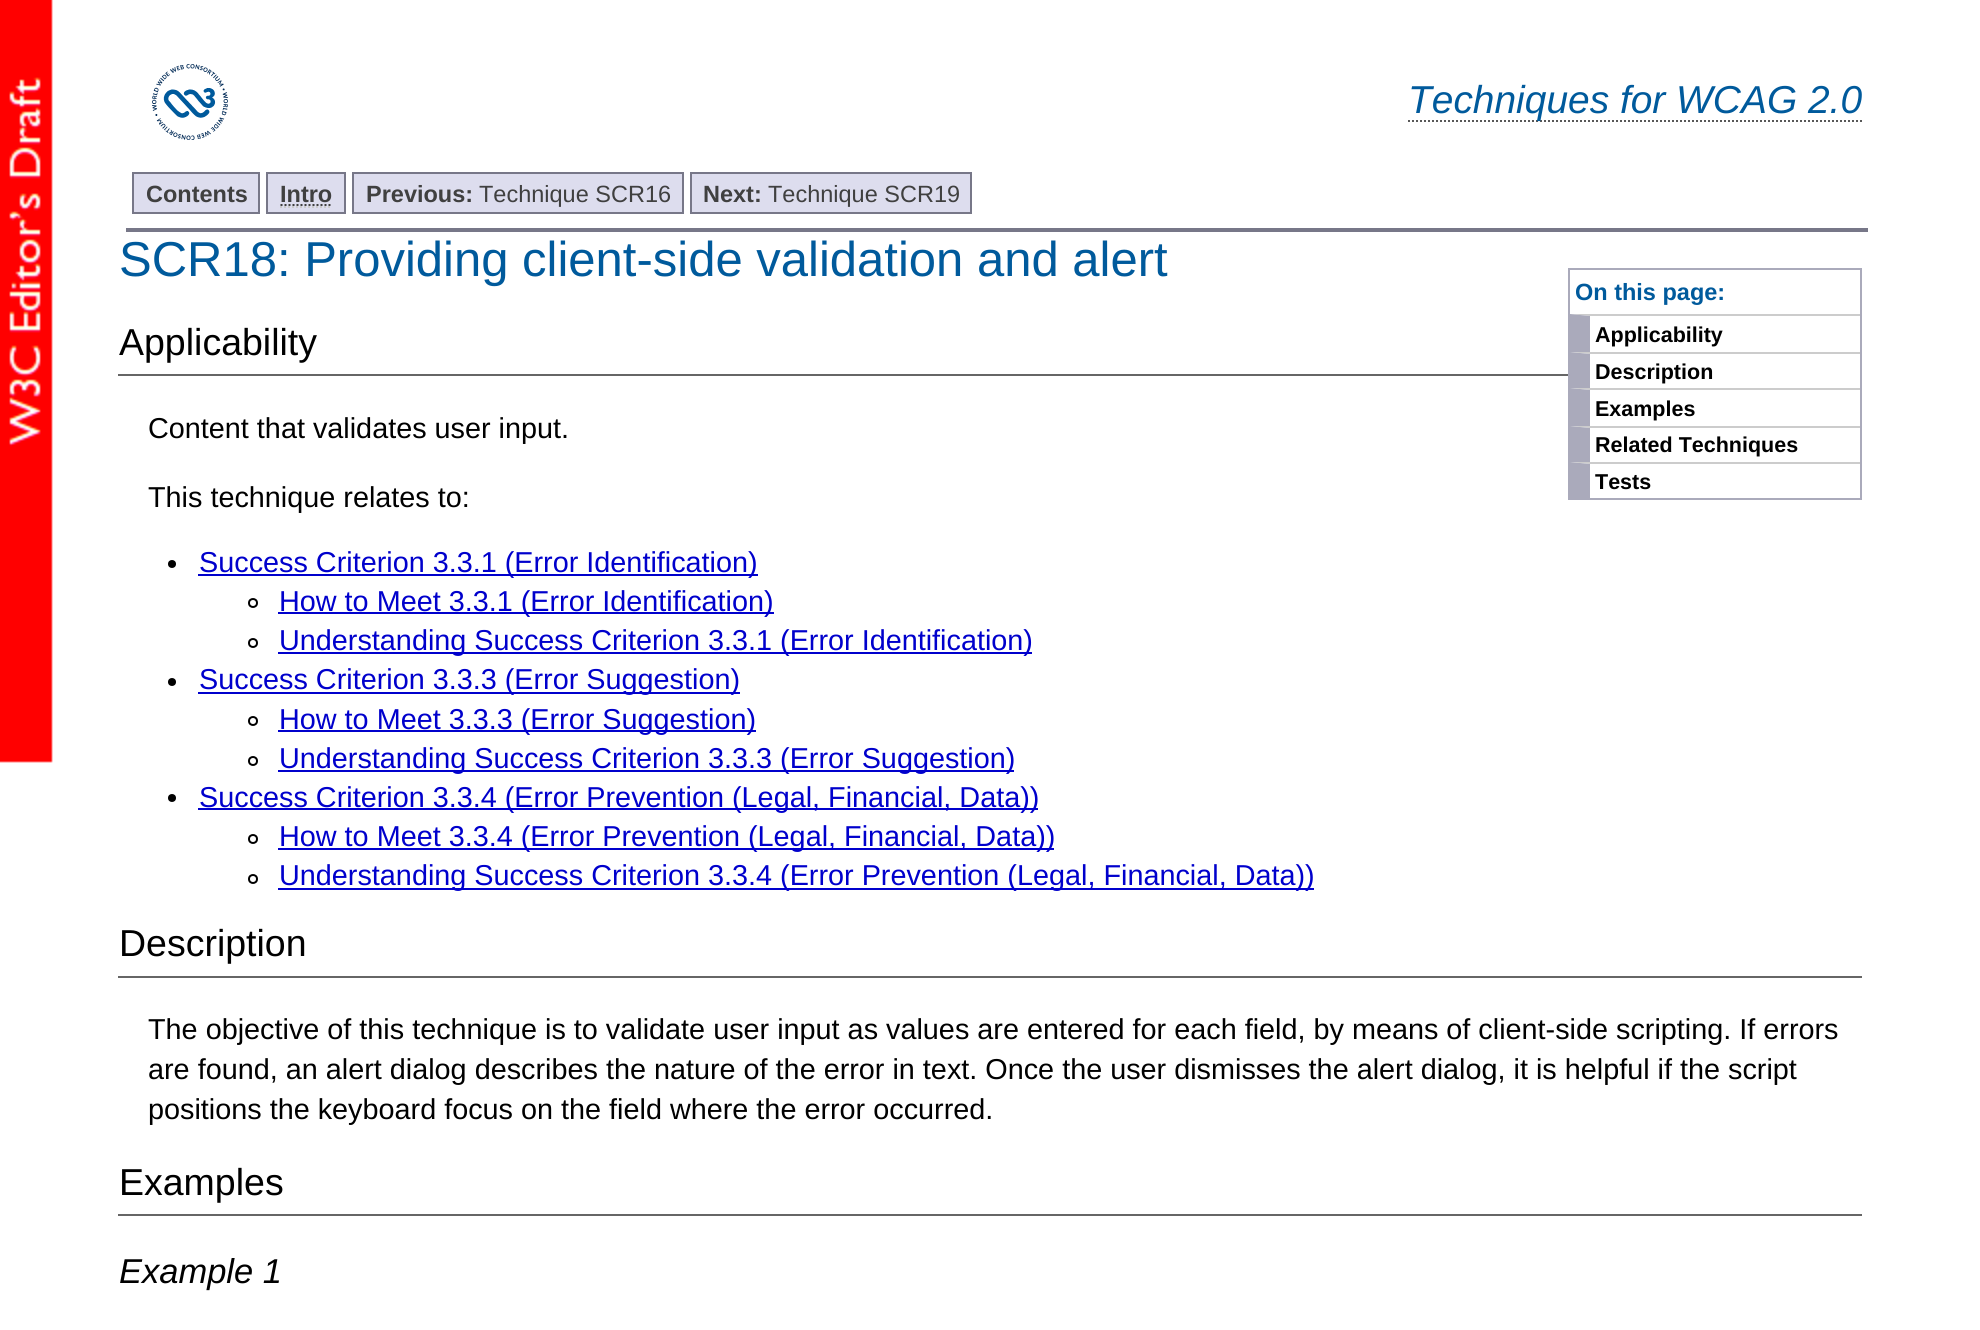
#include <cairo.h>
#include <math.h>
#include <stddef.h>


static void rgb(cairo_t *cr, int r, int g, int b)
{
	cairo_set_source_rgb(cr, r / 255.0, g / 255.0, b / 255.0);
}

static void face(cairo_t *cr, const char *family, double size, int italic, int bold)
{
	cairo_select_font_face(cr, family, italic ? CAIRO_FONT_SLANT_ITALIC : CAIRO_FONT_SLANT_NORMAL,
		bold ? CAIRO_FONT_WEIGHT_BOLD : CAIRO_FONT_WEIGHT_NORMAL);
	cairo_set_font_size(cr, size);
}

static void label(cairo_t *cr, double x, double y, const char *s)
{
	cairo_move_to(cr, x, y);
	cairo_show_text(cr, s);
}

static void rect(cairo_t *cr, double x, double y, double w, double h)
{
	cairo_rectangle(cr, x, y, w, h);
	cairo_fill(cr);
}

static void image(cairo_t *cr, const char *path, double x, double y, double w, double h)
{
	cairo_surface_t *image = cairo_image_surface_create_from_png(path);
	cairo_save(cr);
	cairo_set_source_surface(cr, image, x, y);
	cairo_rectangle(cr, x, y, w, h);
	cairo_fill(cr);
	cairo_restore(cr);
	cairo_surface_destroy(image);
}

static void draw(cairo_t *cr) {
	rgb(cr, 255, 255, 255);
	cairo_paint(cr);
	image(cr, "image0.png", 0, 0, 53, 763);
	image(cr, "image1.png", 152, 64, 76, 76);
	cairo_new_path(cr);
	cairo_move_to(cr, 1408, 121);
	cairo_line_to(cr, 1862, 121);
	rgb(cr, 88, 88, 88);
	cairo_set_dash(cr, (double[]){2, 2}, 2, 0);
	cairo_stroke(cr);
	face(cr, "Liberation Sans", 38.9, 1, 0);
	rgb(cr, 0, 90, 156);
	label(cr, 1408, 113, "Techniques for WCAG 2.0");
	rgb(cr, 119, 119, 136);
	rect(cr, 126, 228, 1742, 4);
	rgb(cr, 221, 221, 238);
	cairo_rectangle(cr, 133, 173, 126, 40);
	cairo_fill_preserve(cr);
	rgb(cr, 119, 119, 136);
	cairo_set_dash(cr, NULL, 0, 0);
	cairo_stroke(cr);
	face(cr, "Liberation Sans", 23.5, 0, 1);
	rgb(cr, 64, 64, 64);
	label(cr, 146, 202, "Contents");
	rgb(cr, 221, 221, 238);
	cairo_rectangle(cr, 267, 173, 78, 40);
	cairo_fill_preserve(cr);
	rgb(cr, 119, 119, 136);
	cairo_stroke(cr);
	rgb(cr, 64, 64, 64);
	label(cr, 280, 202, "Intro");
	cairo_new_path(cr);
	cairo_move_to(cr, 280, 207);
	cairo_line_to(cr, 332, 207);
	rgb(cr, 204, 204, 204);
	cairo_set_dash(cr, (double[]){2, 2}, 2, 0);
	cairo_stroke(cr);
	cairo_new_path(cr);
	cairo_move_to(cr, 280.5, 205);
	cairo_line_to(cr, 332.5, 205);
	rgb(cr, 64, 64, 64);
	cairo_stroke(cr);
	rgb(cr, 221, 221, 238);
	cairo_rectangle(cr, 353, 173, 330, 40);
	cairo_fill_preserve(cr);
	rgb(cr, 119, 119, 136);
	cairo_set_dash(cr, NULL, 0, 0);
	cairo_stroke(cr);
	rgb(cr, 64, 64, 64);
	label(cr, 366, 202, "Previous:");
	face(cr, "Liberation Sans", 23.5, 0, 0);
	label(cr, 479, 202, "Technique SCR16");
	rgb(cr, 221, 221, 238);
	cairo_rectangle(cr, 691, 173, 280, 40);
	cairo_fill_preserve(cr);
	rgb(cr, 119, 119, 136);
	cairo_stroke(cr);
	face(cr, "Liberation Sans", 23.5, 0, 1);
	rgb(cr, 64, 64, 64);
	label(cr, 703, 202, "Next:");
	face(cr, "Liberation Sans", 23.5, 0, 0);
	label(cr, 768, 202, "Technique SCR19");
	face(cr, "Liberation Sans", 49, 0, 0);
	rgb(cr, 0, 90, 156);
	label(cr, 119, 276, "SCR18: Providing client-side validation and alert");
	rgb(cr, 102, 102, 102);
	rect(cr, 118, 374, 1450, 2);
	face(cr, "Liberation Sans", 37.5, 0, 0);
	rgb(cr, 0, 0, 0);
	label(cr, 119, 355, "Applicability");
	face(cr, "Liberation Sans", 28.8, 0, 0);
	label(cr, 148, 438, "Content that validates user input.");
	cairo_rectangle(cr, 1569, 269, 292, 230);
	rgb(cr, 170, 170, 187);
	cairo_stroke(cr);
	face(cr, "Liberation Sans", 23.5, 0, 1);
	rgb(cr, 0, 90, 156);
	label(cr, 1575, 300, "On this page:");
	rgb(cr, 204, 204, 204);
	cairo_new_path(cr);
	cairo_move_to(cr, 1570, 314);
	cairo_line_to(cr, 1860, 314);
	cairo_line_to(cr, 1860, 316);
	cairo_line_to(cr, 1590, 316);
	cairo_close_path(cr);
	cairo_fill(cr);
	rgb(cr, 170, 170, 187);
	cairo_new_path(cr);
	cairo_move_to(cr, 1570, 352);
	cairo_line_to(cr, 1570, 314);
	cairo_line_to(cr, 1590, 316);
	cairo_line_to(cr, 1590, 352);
	cairo_close_path(cr);
	cairo_fill(cr);
	face(cr, "Liberation Sans", 21.5, 0, 1);
	rgb(cr, 0, 0, 0);
	label(cr, 1595, 342, "Applicability");
	rgb(cr, 204, 204, 204);
	cairo_new_path(cr);
	cairo_move_to(cr, 1570, 352);
	cairo_line_to(cr, 1860, 352);
	cairo_line_to(cr, 1860, 354);
	cairo_line_to(cr, 1590, 354);
	cairo_close_path(cr);
	cairo_fill(cr);
	rgb(cr, 170, 170, 187);
	cairo_new_path(cr);
	cairo_move_to(cr, 1570, 388);
	cairo_line_to(cr, 1570, 352);
	cairo_line_to(cr, 1590, 354);
	cairo_line_to(cr, 1590, 388);
	cairo_close_path(cr);
	cairo_fill(cr);
	rgb(cr, 0, 0, 0);
	label(cr, 1595, 379, "Description");
	rgb(cr, 204, 204, 204);
	cairo_new_path(cr);
	cairo_move_to(cr, 1570, 388);
	cairo_line_to(cr, 1860, 388);
	cairo_line_to(cr, 1860, 390);
	cairo_line_to(cr, 1590, 390);
	cairo_close_path(cr);
	cairo_fill(cr);
	rgb(cr, 170, 170, 187);
	cairo_new_path(cr);
	cairo_move_to(cr, 1570, 426);
	cairo_line_to(cr, 1570, 388);
	cairo_line_to(cr, 1590, 390);
	cairo_line_to(cr, 1590, 426);
	cairo_close_path(cr);
	cairo_fill(cr);
	rgb(cr, 0, 0, 0);
	label(cr, 1595, 416, "Examples");
	rgb(cr, 204, 204, 204);
	cairo_new_path(cr);
	cairo_move_to(cr, 1570, 426);
	cairo_line_to(cr, 1860, 426);
	cairo_line_to(cr, 1860, 428);
	cairo_line_to(cr, 1590, 428);
	cairo_close_path(cr);
	cairo_fill(cr);
	rgb(cr, 170, 170, 187);
	cairo_new_path(cr);
	cairo_move_to(cr, 1570, 462);
	cairo_line_to(cr, 1570, 426);
	cairo_line_to(cr, 1590, 428);
	cairo_line_to(cr, 1590, 462);
	cairo_close_path(cr);
	cairo_fill(cr);
	rgb(cr, 0, 0, 0);
	label(cr, 1595, 452, "Related Techniques");
	rgb(cr, 204, 204, 204);
	cairo_new_path(cr);
	cairo_move_to(cr, 1570, 462);
	cairo_line_to(cr, 1860, 462);
	cairo_line_to(cr, 1860, 464);
	cairo_line_to(cr, 1590, 464);
	cairo_close_path(cr);
	cairo_fill(cr);
	rgb(cr, 170, 170, 187);
	cairo_new_path(cr);
	cairo_move_to(cr, 1570, 498);
	cairo_line_to(cr, 1570, 462);
	cairo_line_to(cr, 1590, 464);
	cairo_line_to(cr, 1590, 498);
	cairo_close_path(cr);
	cairo_fill(cr);
	rgb(cr, 0, 0, 0);
	label(cr, 1595, 489, "Tests");
	face(cr, "Liberation Sans", 28.8, 0, 0);
	label(cr, 148, 507, "This technique relates to:");
	cairo_new_path(cr);
	cairo_arc(cr, 172, 564, 4, 0, 2 * M_PI);
	cairo_fill(cr);
	rgb(cr, 0, 0, 204);
	rect(cr, 198, 574, 560, 2);
	label(cr, 199, 572, "Success Criterion 3.3.1 (Error Identification)");
	cairo_new_path(cr);
	cairo_arc(cr, 253, 603, 4, 0, 2 * M_PI);
	rgb(cr, 0, 0, 0);
	cairo_stroke(cr);
	rgb(cr, 0, 0, 204);
	rect(cr, 278, 612, 496, 2);
	label(cr, 279, 611, "How to Meet 3.3.1 (Error Identification)");
	cairo_new_path(cr);
	cairo_arc(cr, 253, 643, 4, 0, 2 * M_PI);
	rgb(cr, 0, 0, 0);
	cairo_stroke(cr);
	rgb(cr, 0, 0, 204);
	rect(cr, 278, 652, 754, 2);
	label(cr, 279, 650, "Understanding Success Criterion 3.3.1 (Error Identification)");
	rgb(cr, 0, 0, 0);
	cairo_new_path(cr);
	cairo_arc(cr, 172, 682, 4, 0, 2 * M_PI);
	cairo_fill(cr);
	rgb(cr, 0, 0, 204);
	rect(cr, 198, 692, 542, 2);
	label(cr, 199, 689, "Success Criterion 3.3.3 (Error Suggestion)");
	cairo_new_path(cr);
	cairo_arc(cr, 253, 721, 4, 0, 2 * M_PI);
	rgb(cr, 0, 0, 0);
	cairo_stroke(cr);
	rgb(cr, 0, 0, 204);
	rect(cr, 278, 730, 478, 2);
	label(cr, 279, 729, "How to Meet 3.3.3 (Error Suggestion)");
	cairo_new_path(cr);
	cairo_arc(cr, 253, 761, 4, 0, 2 * M_PI);
	rgb(cr, 0, 0, 0);
	cairo_stroke(cr);
	rgb(cr, 0, 0, 204);
	rect(cr, 278, 770, 736, 2);
	label(cr, 279, 768, "Understanding Success Criterion 3.3.3 (Error Suggestion)");
	rgb(cr, 0, 0, 0);
	cairo_new_path(cr);
	cairo_arc(cr, 172, 798, 4, 0, 2 * M_PI);
	cairo_fill(cr);
	rgb(cr, 0, 0, 204);
	rect(cr, 198, 808, 840, 2);
	label(cr, 199, 807, "Success Criterion 3.3.4 (Error Prevention (Legal, Financial, Data))");
	cairo_new_path(cr);
	cairo_arc(cr, 253, 839, 4, 0, 2 * M_PI);
	rgb(cr, 0, 0, 0);
	cairo_stroke(cr);
	rgb(cr, 0, 0, 204);
	rect(cr, 278, 848, 776, 2);
	label(cr, 279, 846, "How to Meet 3.3.4 (Error Prevention (Legal, Financial, Data))");
	cairo_new_path(cr);
	cairo_arc(cr, 253, 879, 4, 0, 2 * M_PI);
	rgb(cr, 0, 0, 0);
	cairo_stroke(cr);
	rgb(cr, 0, 0, 204);
	rect(cr, 278, 888, 1036, 2);
	label(cr, 279, 885, "Understanding Success Criterion 3.3.4 (Error Prevention (Legal, Financial, Data))");
	rgb(cr, 102, 102, 102);
	rect(cr, 118, 976, 1744, 2);
	face(cr, "Liberation Sans", 37.5, 0, 0);
	rgb(cr, 0, 0, 0);
	label(cr, 119, 956, "Description");
	face(cr, "Liberation Sans", 28.8, 0, 0);
	label(cr, 148, 1039, "The objective of this technique is to validate user input as values are entered for each field, by means of client-side scripting. If errors");
	label(cr, 148, 1079, "are found, an alert dialog describes the nature of the error in text. Once the user dismisses the alert dialog, it is helpful if the script");
	label(cr, 148, 1119, "positions the keyboard focus on the field where the error occurred.");
	rgb(cr, 102, 102, 102);
	rect(cr, 118, 1214, 1744, 2);
	face(cr, "Liberation Sans", 37.5, 0, 0);
	rgb(cr, 0, 0, 0);
	label(cr, 119, 1195, "Examples");
	face(cr, "Liberation Sans", 34.5, 1, 0);
	label(cr, 119, 1283, "Example 1");
}

int main(void) {
	cairo_surface_t *surface = cairo_image_surface_create(CAIRO_FORMAT_RGB24, 1980, 1330);
	cairo_t *cr = cairo_create(surface);
	cairo_font_options_t *options = cairo_font_options_create();
	cairo_font_options_set_hint_metrics(options, CAIRO_HINT_METRICS_OFF);
	cairo_font_options_set_hint_style(options, CAIRO_HINT_STYLE_NONE);
	cairo_set_font_options(cr, options);
	cairo_set_miter_limit(cr, 4);
	draw(cr);
	cairo_surface_write_to_png(surface, "render.png");
	cairo_font_options_destroy(options);
	cairo_destroy(cr);
	cairo_surface_destroy(surface);
	return 0;
}
